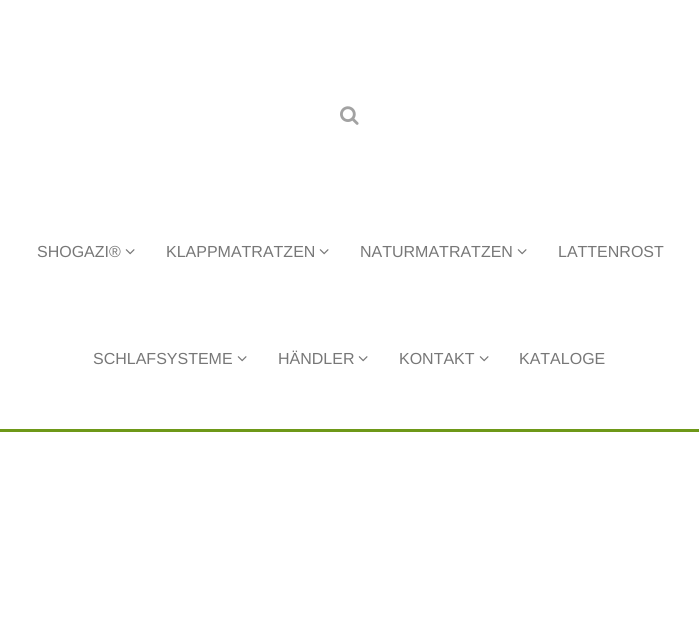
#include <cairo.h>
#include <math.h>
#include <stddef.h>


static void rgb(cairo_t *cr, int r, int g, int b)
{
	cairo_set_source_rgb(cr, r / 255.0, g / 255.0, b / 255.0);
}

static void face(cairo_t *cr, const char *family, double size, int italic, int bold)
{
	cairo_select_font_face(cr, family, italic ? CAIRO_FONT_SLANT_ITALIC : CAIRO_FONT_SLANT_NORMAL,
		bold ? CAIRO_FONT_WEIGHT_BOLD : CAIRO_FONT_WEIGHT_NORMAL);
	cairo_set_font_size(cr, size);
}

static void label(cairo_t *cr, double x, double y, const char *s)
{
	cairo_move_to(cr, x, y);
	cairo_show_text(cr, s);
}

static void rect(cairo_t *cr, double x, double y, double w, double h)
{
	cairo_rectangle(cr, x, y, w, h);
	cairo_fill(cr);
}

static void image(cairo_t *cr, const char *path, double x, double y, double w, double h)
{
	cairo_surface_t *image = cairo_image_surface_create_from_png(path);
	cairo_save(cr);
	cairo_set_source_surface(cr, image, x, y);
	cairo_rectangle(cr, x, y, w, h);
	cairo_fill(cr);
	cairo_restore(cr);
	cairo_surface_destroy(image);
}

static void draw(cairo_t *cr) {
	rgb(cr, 255, 255, 255);
	cairo_paint(cr);
	rgb(cr, 110, 152, 24);
	rect(cr, 0, 429, 699, 3);
	image(cr, "image0.png", 340, 106, 19, 19);
	face(cr, "Liberation Sans", 16, 0, 0);
	rgb(cr, 119, 119, 119);
	label(cr, 37, 257, "SHOGAZI®");
	image(cr, "image1.png", 125, 249, 10, 6);
	label(cr, 166, 257, "KLAPPMATRATZEN");
	image(cr, "image1.png", 319, 249, 10, 6);
	label(cr, 360, 257, "NATURMATRATZEN");
	image(cr, "image1.png", 517, 249, 10, 6);
	label(cr, 558, 257, "LATTENROST");
	label(cr, 93, 364, "SCHLAFSYSTEME");
	image(cr, "image1.png", 237, 356, 10, 6);
	label(cr, 278, 364, "HÄNDLER");
	image(cr, "image1.png", 358, 356, 10, 6);
	label(cr, 399, 364, "KONTAKT");
	image(cr, "image1.png", 479, 356, 10, 6);
	label(cr, 519, 364, "KATALOGE");
}

int main(void) {
	cairo_surface_t *surface = cairo_image_surface_create(CAIRO_FORMAT_RGB24, 699, 641);
	cairo_t *cr = cairo_create(surface);
	cairo_font_options_t *options = cairo_font_options_create();
	cairo_font_options_set_hint_metrics(options, CAIRO_HINT_METRICS_OFF);
	cairo_font_options_set_hint_style(options, CAIRO_HINT_STYLE_NONE);
	cairo_set_font_options(cr, options);
	cairo_set_miter_limit(cr, 4);
	draw(cr);
	cairo_surface_write_to_png(surface, "render.png");
	cairo_font_options_destroy(options);
	cairo_destroy(cr);
	cairo_surface_destroy(surface);
	return 0;
}
